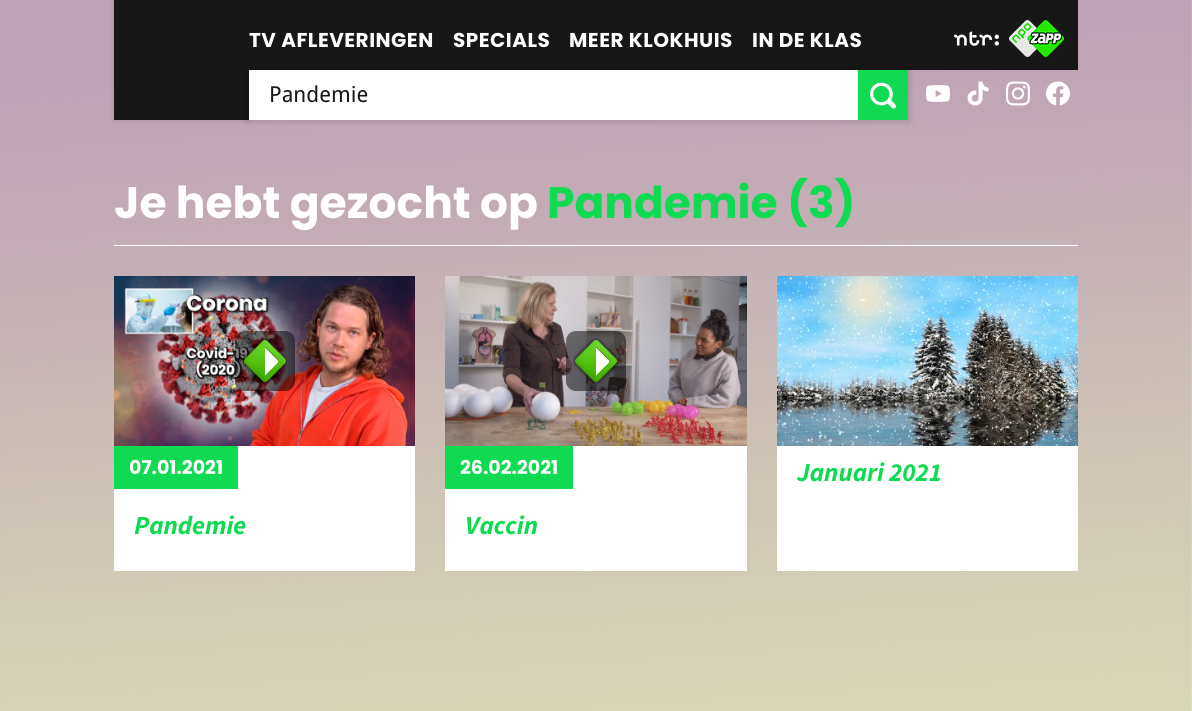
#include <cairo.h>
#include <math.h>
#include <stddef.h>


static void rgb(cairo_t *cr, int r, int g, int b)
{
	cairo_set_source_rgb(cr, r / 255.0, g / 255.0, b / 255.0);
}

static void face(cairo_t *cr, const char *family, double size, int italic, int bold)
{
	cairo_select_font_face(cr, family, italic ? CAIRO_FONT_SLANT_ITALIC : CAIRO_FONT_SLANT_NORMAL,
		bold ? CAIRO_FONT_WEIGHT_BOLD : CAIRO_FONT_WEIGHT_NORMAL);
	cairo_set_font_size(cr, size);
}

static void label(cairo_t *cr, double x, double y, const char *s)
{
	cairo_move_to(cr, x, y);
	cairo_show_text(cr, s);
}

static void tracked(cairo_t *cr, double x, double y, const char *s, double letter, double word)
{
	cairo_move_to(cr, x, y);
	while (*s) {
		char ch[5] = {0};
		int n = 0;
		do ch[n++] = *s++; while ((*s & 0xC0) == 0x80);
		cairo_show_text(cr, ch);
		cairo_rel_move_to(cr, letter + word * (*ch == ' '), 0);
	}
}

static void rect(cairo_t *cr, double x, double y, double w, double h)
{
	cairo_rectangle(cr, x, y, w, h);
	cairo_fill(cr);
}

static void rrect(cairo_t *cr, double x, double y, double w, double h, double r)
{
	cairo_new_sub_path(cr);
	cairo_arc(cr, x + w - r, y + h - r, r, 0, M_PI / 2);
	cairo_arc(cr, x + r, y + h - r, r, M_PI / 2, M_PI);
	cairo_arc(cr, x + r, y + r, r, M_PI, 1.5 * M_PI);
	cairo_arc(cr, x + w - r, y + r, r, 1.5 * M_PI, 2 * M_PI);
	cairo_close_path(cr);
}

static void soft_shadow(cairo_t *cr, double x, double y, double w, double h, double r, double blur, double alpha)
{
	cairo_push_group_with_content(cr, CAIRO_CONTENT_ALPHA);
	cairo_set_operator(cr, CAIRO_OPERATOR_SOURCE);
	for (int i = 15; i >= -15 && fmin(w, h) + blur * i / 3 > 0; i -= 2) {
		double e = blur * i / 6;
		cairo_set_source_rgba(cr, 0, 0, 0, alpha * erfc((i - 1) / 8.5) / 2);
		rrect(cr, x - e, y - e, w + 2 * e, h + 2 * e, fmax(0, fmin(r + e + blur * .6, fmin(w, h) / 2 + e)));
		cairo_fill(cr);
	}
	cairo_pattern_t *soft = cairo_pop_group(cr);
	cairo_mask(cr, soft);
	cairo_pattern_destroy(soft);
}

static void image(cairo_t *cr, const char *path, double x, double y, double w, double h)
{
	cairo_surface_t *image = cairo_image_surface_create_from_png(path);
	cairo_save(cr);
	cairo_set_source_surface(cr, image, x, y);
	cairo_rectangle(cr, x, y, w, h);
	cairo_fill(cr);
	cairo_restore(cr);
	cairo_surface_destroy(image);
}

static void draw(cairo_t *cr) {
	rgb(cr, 255, 255, 255);
	cairo_paint(cr);
	image(cr, "image0.png", 0, 0, 1192, 711);
	rgb(cr, 23, 23, 23);
	rect(cr, 249, 0, 829, 70);
	rgb(cr, 0, 0, 0);
	soft_shadow(cr, 113, -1, 137, 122, 0, 2.5, 0.1);
	rgb(cr, 23, 23, 23);
	rect(cr, 114, 0, 135, 120);
	face(cr, "Poppins", 20, 0, 1);
	rgb(cr, 255, 255, 255);
	tracked(cr, 249, 47, "TV AFLEVERINGEN", 0.5, 0);
	tracked(cr, 453, 47, "SPECIALS", 0.5, 0);
	tracked(cr, 569, 47, "MEER KLOKHUIS", 0.5, 0);
	tracked(cr, 752, 47, "IN DE KLAS", 0.5, 0);
	rgb(cr, 0, 0, 0);
	soft_shadow(cr, 246, 67, 665, 56, 0, 2.5, 0.1);
	rgb(cr, 255, 255, 255);
	rect(cr, 249, 70, 609, 50);
	face(cr, "Droid Sans", 22, 0, 0);
	rgb(cr, 23, 23, 23);
	label(cr, 269, 102, "Pandemie");
	rgb(cr, 15, 218, 82);
	rect(cr, 858, 70, 50, 50);
	image(cr, "image1.png", 870, 82, 26, 27);
	image(cr, "image2.png", 954, 31, 45, 15);
	image(cr, "image3.png", 1009, 20, 55, 37);
	image(cr, "image4.png", 926, 85, 24, 17);
	image(cr, "image5.png", 967, 81, 22, 25);
	image(cr, "image6.png", 1006, 81, 24, 25);
	image(cr, "image7.png", 1046, 81, 24, 25);
	rgb(cr, 255, 255, 255);
	rect(cr, 114, 245, 964, 1);
	face(cr, "Poppins", 44, 0, 1);
	label(cr, 114, 218, "Je hebt gezocht op");
	rgb(cr, 15, 218, 82);
	label(cr, 547, 218, "Pandemie (3)");
	rgb(cr, 255, 255, 255);
	rect(cr, 114, 446, 301, 125);
	image(cr, "image8.png", 114, 276, 301, 170);
	image(cr, "image9.png", 235, 331, 60, 60);
	rgb(cr, 15, 218, 82);
	rect(cr, 114, 446, 124, 43);
	face(cr, "Poppins", 19, 0, 1);
	rgb(cr, 255, 255, 255);
	label(cr, 129, 474, "07.01.2021");
	face(cr, "Source Sans Pro", 26, 1, 1);
	rgb(cr, 15, 218, 82);
	label(cr, 134, 534, "Pandemie");
	rgb(cr, 255, 255, 255);
	rect(cr, 445, 446, 302, 125);
	image(cr, "image10.png", 445, 276, 302, 170);
	image(cr, "image11.png", 566, 331, 60, 60);
	rgb(cr, 15, 218, 82);
	rect(cr, 445, 446, 128, 43);
	face(cr, "Poppins", 19, 0, 1);
	rgb(cr, 255, 255, 255);
	label(cr, 460, 474, "26.02.2021");
	face(cr, "Source Sans Pro", 26, 1, 1);
	rgb(cr, 15, 218, 82);
	label(cr, 465, 534, "Vaccin");
	rgb(cr, 255, 255, 255);
	rect(cr, 777, 446, 301, 125);
	image(cr, "image12.png", 777, 276, 301, 170);
	rgb(cr, 15, 218, 82);
	label(cr, 797, 481, "Januari 2021");
}

int main(void) {
	cairo_surface_t *surface = cairo_image_surface_create(CAIRO_FORMAT_RGB24, 1192, 711);
	cairo_t *cr = cairo_create(surface);
	cairo_font_options_t *options = cairo_font_options_create();
	cairo_font_options_set_hint_metrics(options, CAIRO_HINT_METRICS_OFF);
	cairo_font_options_set_hint_style(options, CAIRO_HINT_STYLE_NONE);
	cairo_set_font_options(cr, options);
	cairo_set_miter_limit(cr, 4);
	draw(cr);
	cairo_surface_write_to_png(surface, "render.png");
	cairo_font_options_destroy(options);
	cairo_destroy(cr);
	cairo_surface_destroy(surface);
	return 0;
}
